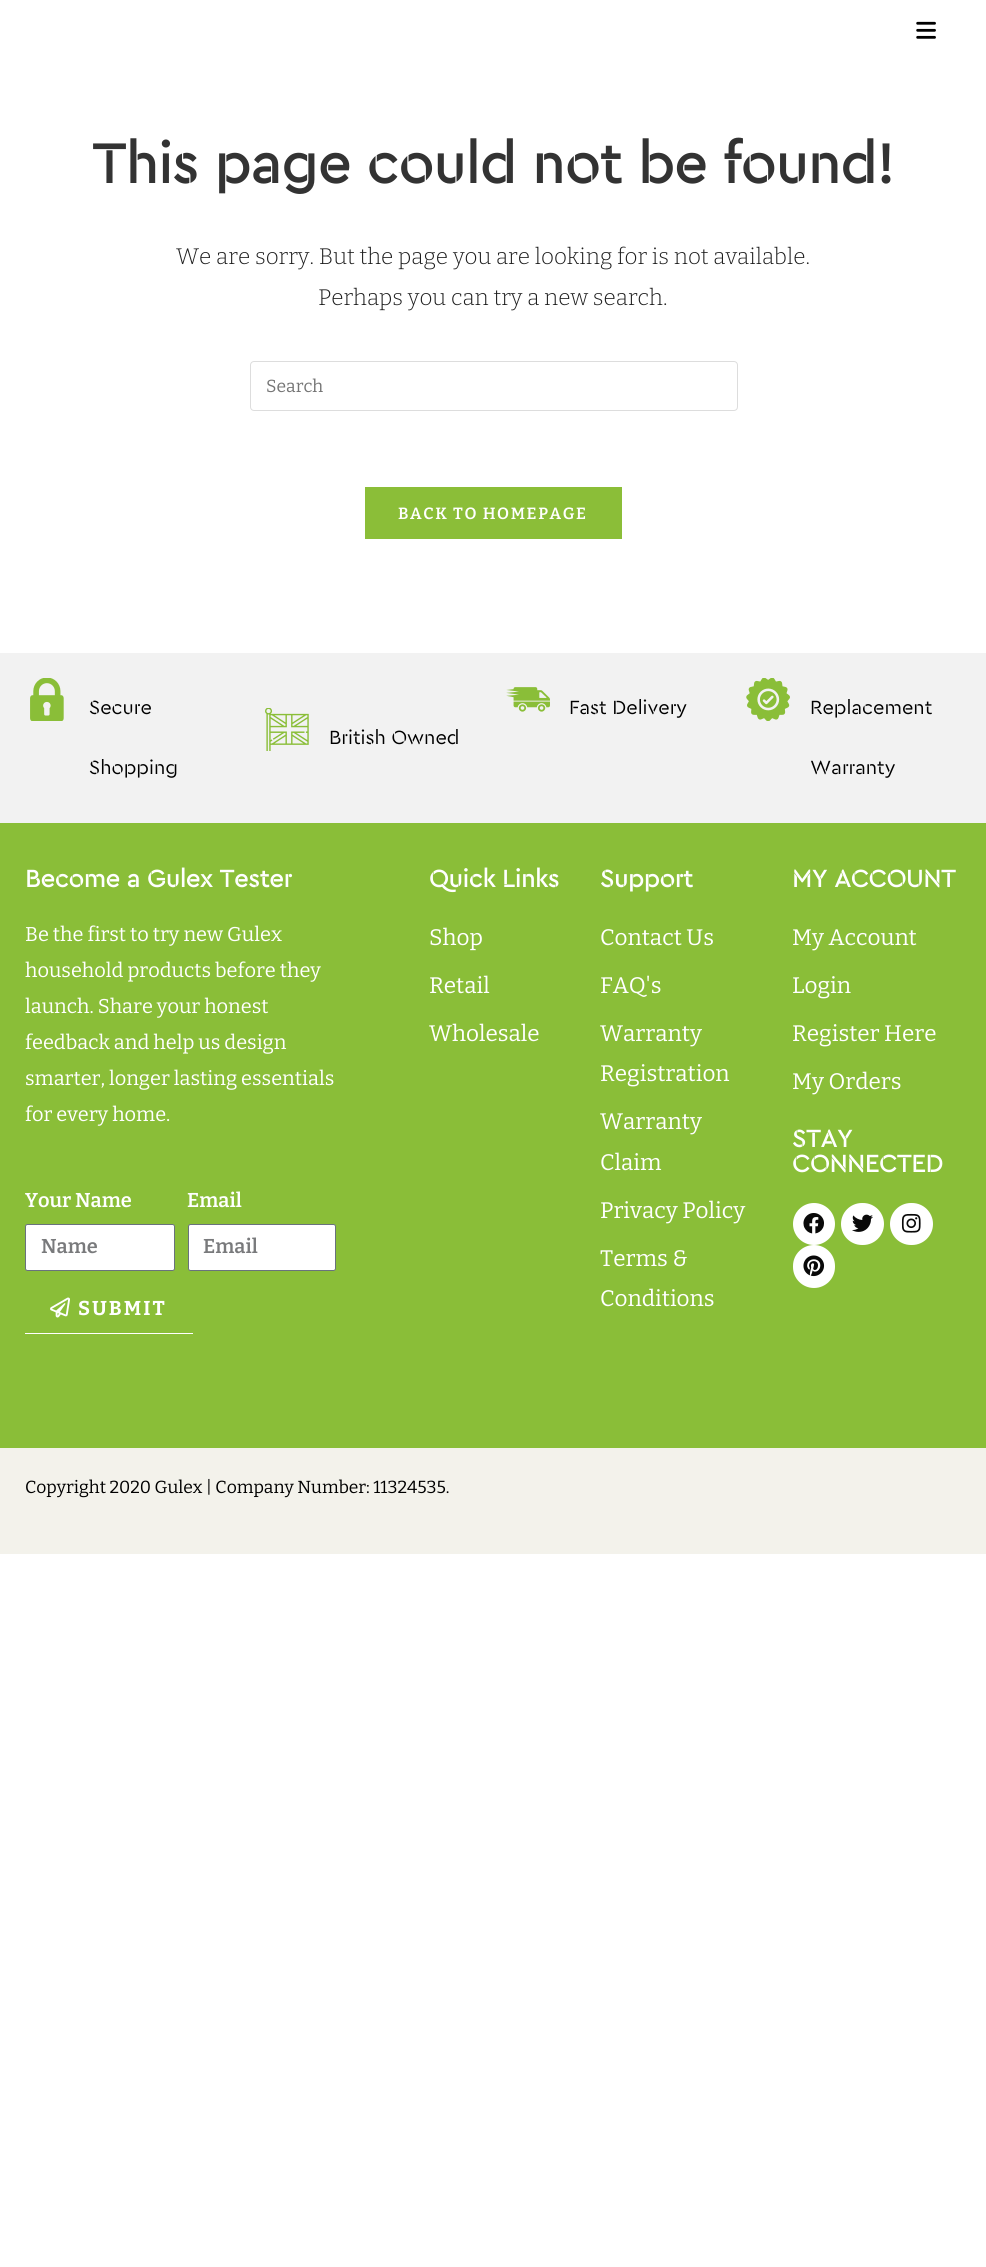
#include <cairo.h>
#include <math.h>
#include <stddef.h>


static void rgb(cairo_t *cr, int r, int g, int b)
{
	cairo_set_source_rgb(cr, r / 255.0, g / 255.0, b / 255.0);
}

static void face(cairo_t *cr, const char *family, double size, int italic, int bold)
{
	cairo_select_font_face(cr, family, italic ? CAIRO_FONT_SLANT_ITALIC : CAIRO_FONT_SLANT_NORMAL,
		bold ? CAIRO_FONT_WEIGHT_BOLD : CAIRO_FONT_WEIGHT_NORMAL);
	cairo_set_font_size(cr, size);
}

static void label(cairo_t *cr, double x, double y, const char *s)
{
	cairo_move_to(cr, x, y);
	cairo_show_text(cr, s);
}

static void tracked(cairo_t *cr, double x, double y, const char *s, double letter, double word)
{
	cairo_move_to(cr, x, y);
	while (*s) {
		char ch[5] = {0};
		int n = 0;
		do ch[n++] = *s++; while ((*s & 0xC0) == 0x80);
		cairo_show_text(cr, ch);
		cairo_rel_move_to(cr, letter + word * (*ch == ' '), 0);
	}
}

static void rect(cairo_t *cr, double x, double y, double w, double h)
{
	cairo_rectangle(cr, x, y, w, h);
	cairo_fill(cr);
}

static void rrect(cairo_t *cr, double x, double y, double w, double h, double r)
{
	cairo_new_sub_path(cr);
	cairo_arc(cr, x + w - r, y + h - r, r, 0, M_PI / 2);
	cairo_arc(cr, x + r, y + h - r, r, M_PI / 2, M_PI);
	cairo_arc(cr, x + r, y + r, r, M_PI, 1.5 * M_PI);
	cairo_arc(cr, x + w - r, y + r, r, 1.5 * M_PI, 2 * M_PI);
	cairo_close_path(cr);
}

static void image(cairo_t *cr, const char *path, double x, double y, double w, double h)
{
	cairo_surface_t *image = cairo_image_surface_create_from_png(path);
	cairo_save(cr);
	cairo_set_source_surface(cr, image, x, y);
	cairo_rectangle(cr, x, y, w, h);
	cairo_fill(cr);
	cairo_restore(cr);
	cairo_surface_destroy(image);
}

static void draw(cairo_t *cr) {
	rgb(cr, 255, 255, 255);
	cairo_paint(cr);
	image(cr, "image0.png", 916, 21, 20, 18);
	face(cr, "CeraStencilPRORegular", 57.5, 0, 1);
	rgb(cr, 51, 51, 51);
	label(cr, 92, 183, "This page could not be found!");
	face(cr, "Bitter Light", 22.5, 0, 0);
	rgb(cr, 30, 30, 30);
	label(cr, 176, 264, "We are sorry. But the page you are looking for is not available.");
	label(cr, 318, 305, "Perhaps you can try a new search.");
	rrect(cr, 250.5, 361.5, 487, 49, 3.5);
	rgb(cr, 221, 221, 221);
	cairo_set_line_width(cr, 1);
	cairo_stroke(cr);
	face(cr, "Bitter", 17.5, 0, 0);
	rgb(cr, 117, 117, 117);
	label(cr, 266, 392, "Search");
	rgb(cr, 139, 190, 56);
	rect(cr, 365, 487, 257, 52);
	face(cr, "Bitter SemiBold", 16.25, 0, 0);
	rgb(cr, 255, 255, 255);
	tracked(cr, 398, 519, "BACK TO HOMEPAGE", 1.6, 0);
	rgb(cr, 242, 242, 242);
	rect(cr, 0, 653, 986, 170);
	image(cr, "image1.png", 30, 678, 34, 43);
	face(cr, "CeraStencilPRORegular", 20, 0, 0);
	rgb(cr, 0, 0, 0);
	label(cr, 89, 714, "Secure");
	label(cr, 89, 774, "Shopping");
	image(cr, "image2.png", 265, 708, 44, 43);
	label(cr, 329, 744, "British Owned");
	image(cr, "image3.png", 506, 687, 44, 25);
	label(cr, 569, 714, "Fast Delivery");
	image(cr, "image4.png", 746, 678, 44, 43);
	label(cr, 810, 714, "Replacement");
	label(cr, 810, 774, "Warranty");
	rgb(cr, 138, 190, 56);
	rect(cr, 0, 823, 986, 625);
	face(cr, "CeraStencilPRORegular", 25, 0, 1);
	rgb(cr, 255, 255, 255);
	label(cr, 25, 887, "Become a Gulex Tester");
	face(cr, "Bitter", 20, 0, 0);
	label(cr, 25, 941, "Be the first to try new Gulex");
	label(cr, 25, 977, "household products before they");
	label(cr, 25, 1013, "launch. Share your honest");
	label(cr, 25, 1049, "feedback and help us design");
	label(cr, 25, 1085, "smarter, longer lasting essentials");
	label(cr, 25, 1121, "for every home.");
	face(cr, "Bitter SemiBold", 20, 0, 0);
	label(cr, 25, 1207, "Your Name");
	rrect(cr, 25.5, 1224.5, 149, 46, 2);
	cairo_fill_preserve(cr);
	rgb(cr, 105, 114, 125);
	cairo_stroke(cr);
	rgb(cr, 121, 122, 124);
	label(cr, 41, 1253, "Name");
	rgb(cr, 255, 255, 255);
	label(cr, 187, 1207, "Email");
	rrect(cr, 188.5, 1224.5, 147, 46, 2);
	cairo_fill_preserve(cr);
	rgb(cr, 105, 114, 125);
	cairo_stroke(cr);
	rgb(cr, 121, 122, 124);
	label(cr, 203, 1253, "Email");
	rgb(cr, 255, 255, 255);
	rect(cr, 25, 1333, 168, 1);
	image(cr, "image5.png", 50, 1297, 20, 21);
	face(cr, "Bitter", 20, 0, 1);
	tracked(cr, 78, 1315, "SUBMIT", 2, 0);
	face(cr, "CeraStencilPRORegular", 25, 0, 1);
	label(cr, 429, 887, "Quick Links");
	face(cr, "Bitter", 22.5, 0, 0);
	label(cr, 429, 945, "Shop");
	label(cr, 429, 993, "Retail");
	label(cr, 429, 1041, "Wholesale");
	face(cr, "CeraStencilPRORegular", 25, 0, 1);
	label(cr, 600, 887, "Support");
	face(cr, "Bitter", 22.5, 0, 0);
	label(cr, 600, 945, "Contact Us");
	label(cr, 600, 993, "FAQ's");
	label(cr, 600, 1041, "Warranty");
	label(cr, 600, 1081, "Registration");
	label(cr, 600, 1129, "Warranty");
	label(cr, 600, 1170, "Claim");
	label(cr, 600, 1218, "Privacy Policy");
	label(cr, 600, 1266, "Terms &");
	label(cr, 600, 1306, "Conditions");
	face(cr, "CeraStencilPRORegular", 25, 0, 1);
	label(cr, 792, 887, "MY ACCOUNT");
	face(cr, "Bitter", 22.5, 0, 0);
	label(cr, 792, 945, "My Account");
	label(cr, 792, 993, "Login");
	label(cr, 792, 1041, "Register Here");
	label(cr, 792, 1089, "My Orders");
	face(cr, "CeraStencilPRORegular", 25, 0, 1);
	label(cr, 792, 1147, "STAY");
	label(cr, 792, 1172, "CONNECTED");
	cairo_new_path(cr);
	cairo_arc(cr, 814, 1224, 21, 0, 2 * M_PI);
	cairo_fill(cr);
	image(cr, "image6.png", 803, 1213, 21, 21);
	rrect(cr, 841, 1203, 43, 42, 21);
	cairo_fill(cr);
	image(cr, "image7.png", 852, 1214, 21, 18);
	rrect(cr, 890, 1203, 43, 42, 21);
	cairo_fill(cr);
	image(cr, "image8.png", 901, 1213, 20, 20);
	rrect(cr, 793, 1245, 42, 43, 21);
	cairo_fill(cr);
	image(cr, "image9.png", 803, 1255, 22, 22);
	rgb(cr, 243, 242, 235);
	rect(cr, 0, 1448, 986, 106);
	face(cr, "Bitter", 17.5, 0, 0);
	rgb(cr, 0, 0, 0);
	label(cr, 25, 1493, "Copyright 2020 Gulex | Company Number: 11324535.");
}

int main(void) {
	cairo_surface_t *surface = cairo_image_surface_create(CAIRO_FORMAT_RGB24, 986, 2267);
	cairo_t *cr = cairo_create(surface);
	cairo_font_options_t *options = cairo_font_options_create();
	cairo_font_options_set_hint_metrics(options, CAIRO_HINT_METRICS_OFF);
	cairo_font_options_set_hint_style(options, CAIRO_HINT_STYLE_NONE);
	cairo_set_font_options(cr, options);
	cairo_set_miter_limit(cr, 4);
	draw(cr);
	cairo_surface_write_to_png(surface, "render.png");
	cairo_font_options_destroy(options);
	cairo_destroy(cr);
	cairo_surface_destroy(surface);
	return 0;
}
